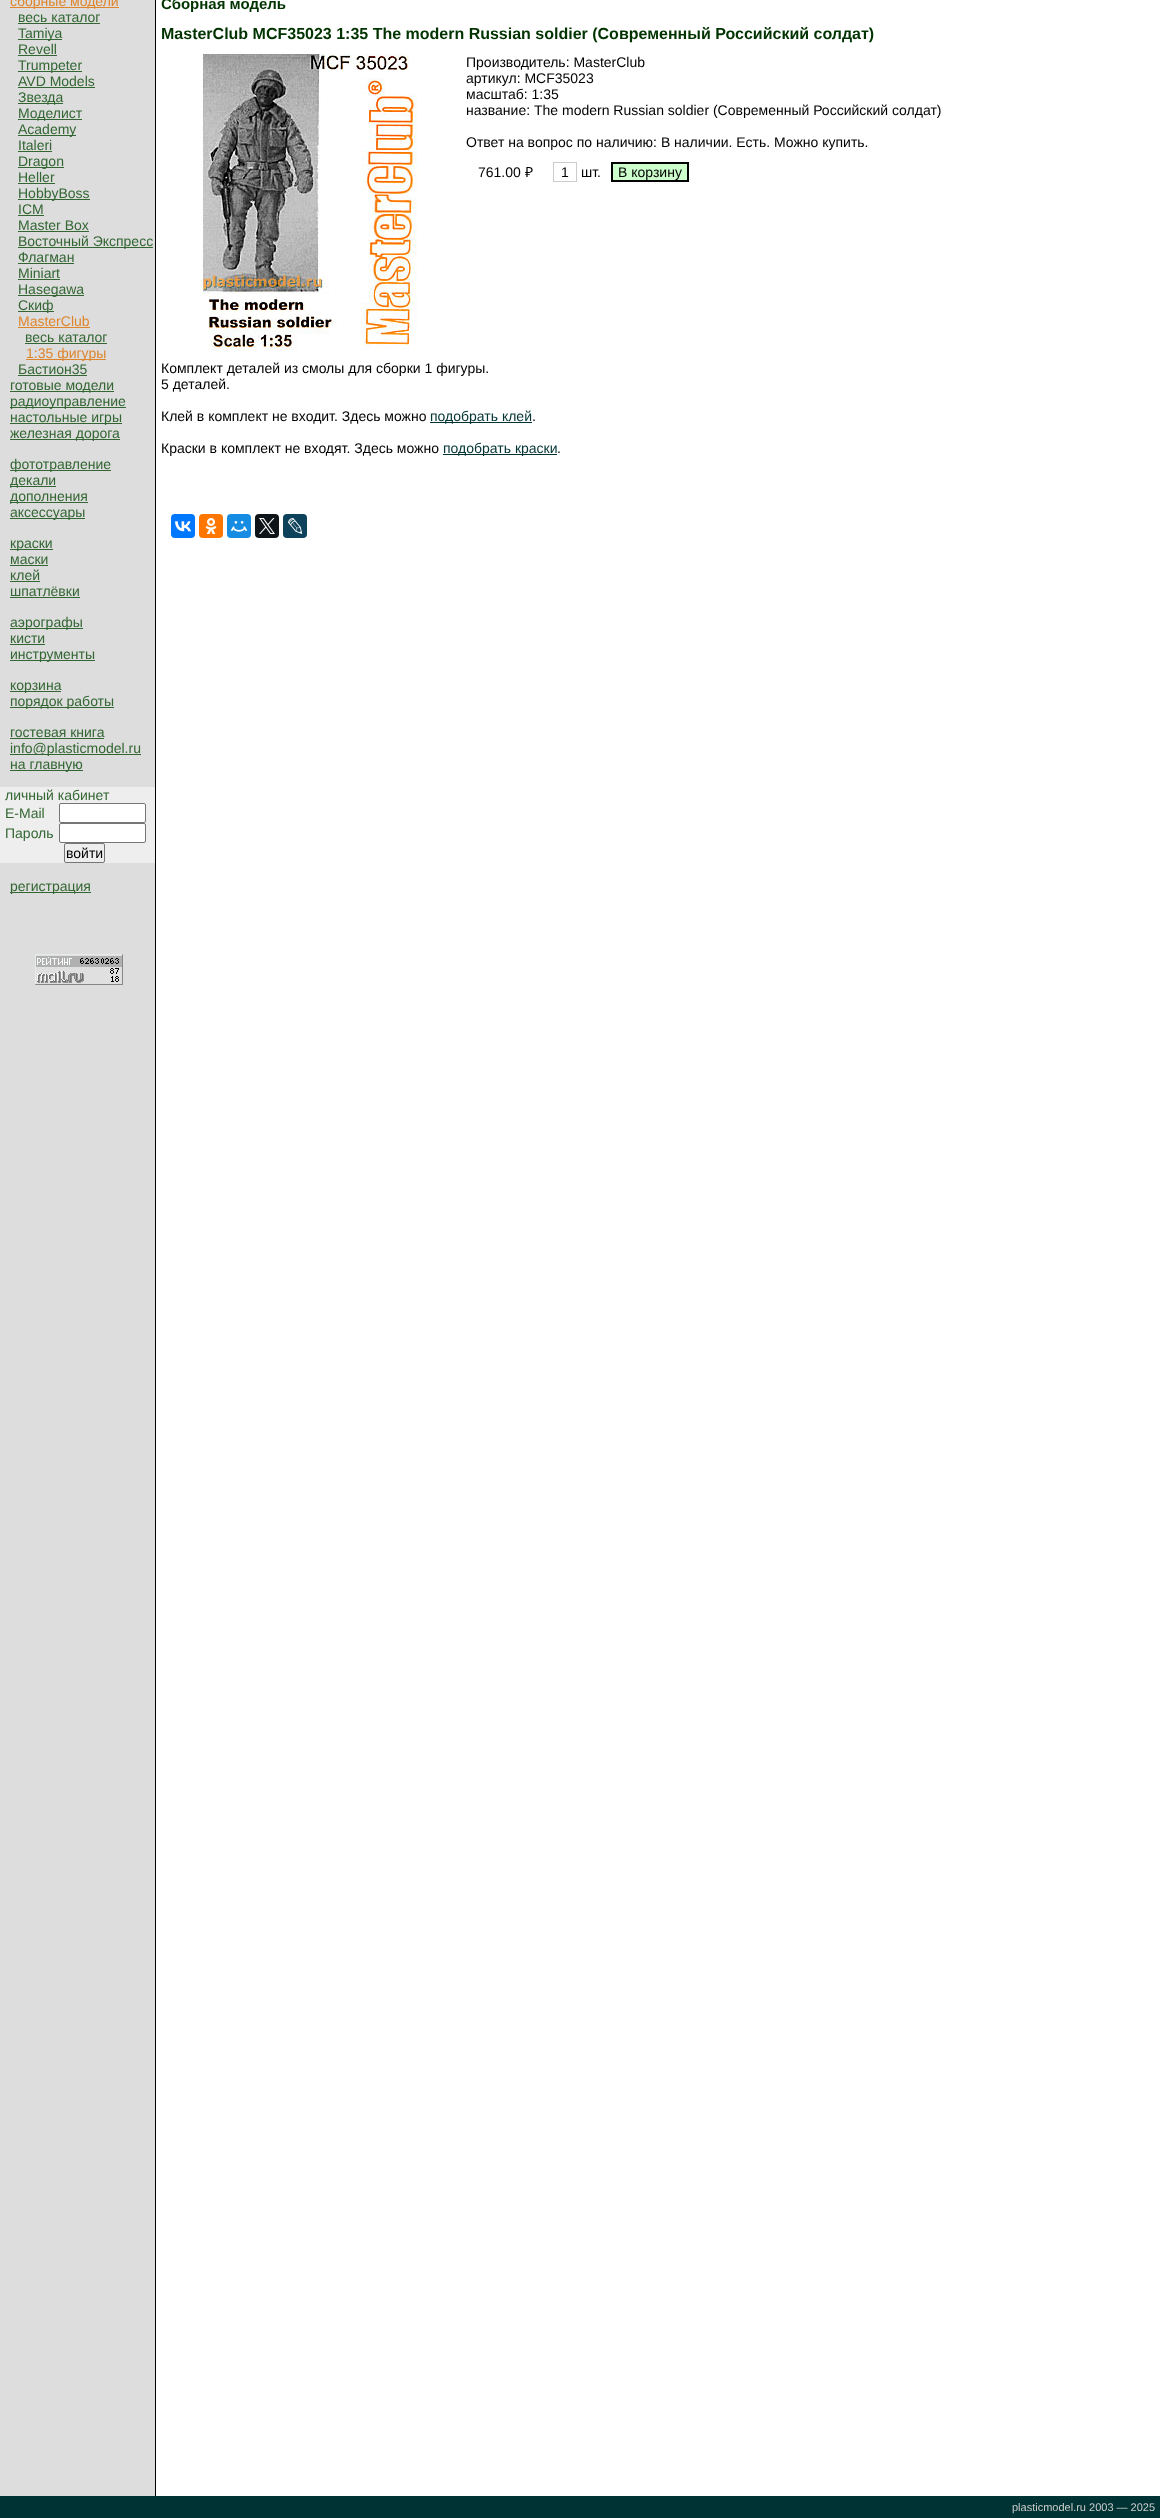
<!DOCTYPE html>
<meta charset="utf-8">
<style>body { margin: 0 } canvas { display: block }</style>
<canvas id="canvas" width="1160" height="2518"></canvas>
<script type="module">
  const canvas = document.getElementById("canvas");
  const ctx = canvas.getContext("2d");
  ctx.miterLimit = 4;
  ctx.fontKerning = "normal";
  async function loadImage(src) {
    const img = new Image();
    img.src = src;
    await img.decode();
    return img;
  }

  ctx.fillStyle = "#ffffff";
  ctx.fillRect(0, 0, 1160, 2518);
  ctx.fillStyle = "#dddddd";
  ctx.fillRect(0, 0, 155, 2496);
  ctx.fillStyle = "#000000";
  ctx.fillRect(155, 0, 1, 2497);
  ctx.fillStyle = "#de852c";
  ctx.fillRect(10, 7, 109, 1);
  ctx.font = "14px Liberation Sans";
  ctx.fillText("сборные модели", 10, 6);
  ctx.fillStyle = "#336633";
  ctx.fillText("весь каталог", 18, 22);
  ctx.fillRect(18, 23, 82, 1);
  ctx.fillRect(18, 39, 44, 1);
  ctx.fillText("Tamiya", 18, 38);
  ctx.fillText("Revell", 18, 54);
  ctx.fillRect(18, 55, 39, 1);
  ctx.fillRect(18, 71, 64, 1);
  ctx.fillText("Trumpeter", 18, 70);
  ctx.fillText("AVD Models", 18, 86);
  ctx.fillRect(18, 87, 77, 1);
  ctx.fillRect(18, 103, 45, 1);
  ctx.fillText("Звезда", 18, 102);
  ctx.fillRect(18, 119, 64, 1);
  ctx.fillText("Моделист", 18, 118);
  ctx.fillRect(18, 135, 58, 1);
  ctx.fillText("Academy", 18, 134);
  ctx.fillText("Italeri", 18, 150);
  ctx.fillRect(18, 151, 34, 1);
  ctx.fillRect(18, 167, 46, 1);
  ctx.fillText("Dragon", 18, 166);
  ctx.fillText("Heller", 18, 182);
  ctx.fillRect(18, 183, 37, 1);
  ctx.fillRect(18, 199, 72, 1);
  ctx.fillText("HobbyBoss", 18, 198);
  ctx.fillText("ICM", 18, 214);
  ctx.fillRect(18, 215, 26, 1);
  ctx.fillText("Master Box", 18, 230);
  ctx.fillRect(18, 231, 71, 1);
  ctx.fillRect(18, 247, 135, 1);
  ctx.fillText("Восточный Экспресс", 18, 246);
  ctx.fillText("Флагман", 18, 262);
  ctx.fillRect(18, 263, 56, 1);
  ctx.fillText("Miniart", 18, 278);
  ctx.fillRect(18, 279, 42, 1);
  ctx.fillRect(18, 295, 66, 1);
  ctx.fillText("Hasegawa", 18, 294);
  ctx.fillRect(18, 311, 36, 1);
  ctx.fillText("Скиф", 18, 310);
  ctx.fillStyle = "#de852c";
  ctx.fillText("MasterClub", 18, 326);
  ctx.fillRect(18, 327, 72, 1);
  ctx.fillStyle = "#336633";
  ctx.fillText("весь каталог", 25, 342);
  ctx.fillRect(25, 343, 82, 1);
  ctx.fillStyle = "#de852c";
  ctx.fillRect(26, 359, 80, 1);
  ctx.fillText("1:35 фигуры", 26, 358);
  ctx.fillStyle = "#336633";
  ctx.fillText("Бастион35", 18, 374);
  ctx.fillRect(18, 375, 69, 1);
  ctx.fillRect(10, 391, 104, 1);
  ctx.fillText("готовые модели", 10, 390);
  ctx.fillRect(10, 407, 116, 1);
  ctx.fillText("радиоуправление", 10, 406);
  ctx.fillRect(10, 423, 112, 1);
  ctx.fillText("настольные игры", 10, 422);
  ctx.fillRect(10, 439, 110, 1);
  ctx.fillText("железная дорога", 10, 438);
  ctx.fillRect(10, 470, 101, 1);
  ctx.fillText("фототравление", 10, 469);
  ctx.fillRect(10, 486, 46, 1);
  ctx.fillText("декали", 10, 485);
  ctx.fillRect(10, 502, 78, 1);
  ctx.fillText("дополнения", 10, 501);
  ctx.fillRect(10, 518, 75, 1);
  ctx.fillText("аксессуары", 10, 517);
  ctx.fillRect(10, 549, 43, 1);
  ctx.fillText("краски", 10, 548);
  ctx.fillText("маски", 10, 564);
  ctx.fillRect(10, 565, 38, 1);
  ctx.fillText("клей", 10, 580);
  ctx.fillRect(10, 581, 30, 1);
  ctx.fillText("шпатлёвки", 10, 596);
  ctx.fillRect(10, 597, 70, 1);
  ctx.fillRect(10, 628, 73, 1);
  ctx.fillText("аэрографы", 10, 627);
  ctx.fillText("кисти", 10, 643);
  ctx.fillRect(10, 644, 35, 1);
  ctx.fillRect(10, 660, 85, 1);
  ctx.fillText("инструменты", 10, 659);
  ctx.fillRect(10, 691, 51, 1);
  ctx.fillText("корзина", 10, 690);
  ctx.fillRect(10, 707, 104, 1);
  ctx.fillText("порядок работы", 10, 706);
  ctx.fillText("гостевая книга", 10, 737);
  ctx.fillRect(10, 738, 94, 1);
  ctx.fillRect(10, 754, 131, 1);
  ctx.fillText("info@plasticmodel.ru", 10, 753);
  ctx.fillRect(10, 770, 73, 1);
  ctx.fillText("на главную", 10, 769);
  ctx.fillStyle = "#eeeeee";
  ctx.fillRect(0, 787, 155, 76);
  ctx.fillStyle = "#336633";
  ctx.fillText("личный кабинет", 5, 800);
  ctx.fillText("E-Mail", 5, 818);
  ctx.fillStyle = "#ffffff";
  ctx.beginPath();
  ctx.roundRect(59.5, 803.5, 86, 19, 1.5);
  ctx.fill();
  ctx.strokeStyle = "#767676";
  ctx.stroke();
  ctx.fillStyle = "#336633";
  ctx.fillText("Пароль", 5, 838);
  ctx.fillStyle = "#ffffff";
  ctx.beginPath();
  ctx.roundRect(59.5, 823.5, 86, 19, 1.5);
  ctx.fill();
  ctx.stroke();
  ctx.beginPath();
  ctx.roundRect(64.5, 843.5, 40, 19, 1.5);
  ctx.stroke();
  ctx.fillStyle = "#000000";
  ctx.fillText("войти", 66, 858);
  ctx.fillStyle = "#336633";
  ctx.fillRect(10, 892, 81, 1);
  ctx.fillText("регистрация", 10, 891);
  ctx.drawImage(await loadImage("img1.png"), 35, 954, 88, 31);
  ctx.font = "bold 15px Liberation Sans";
  ctx.fillStyle = "#003300";
  ctx.fillText("Сборная модель", 161, 9);
  ctx.font = "bold 16px Liberation Sans";
  ctx.fillText("MasterClub MCF35023 1:35 The modern Russian soldier (Современный Российский солдат)", 161, 39);
  ctx.drawImage(await loadImage("img2.png"), 201, 54, 216, 296);
  ctx.font = "14px Liberation Sans";
  ctx.fillStyle = "#000000";
  ctx.fillText("Производитель: MasterClub", 466, 67);
  ctx.fillText("артикул: MCF35023", 466, 83);
  ctx.fillText("масштаб: 1:35", 466, 99);
  ctx.fillText("название: The modern Russian soldier (Современный Российский солдат)", 466, 115);
  ctx.fillText("Ответ на вопрос по наличию: В наличии. Есть. Можно купить.", 466, 147);
  ctx.fillText("761.00", 478, 177);
  ctx.font = "14px Noto Sans";
  ctx.fillText("₽", 525, 177);
  ctx.strokeStyle = "#cccccc";
  ctx.strokeRect(553.5, 162.5, 23, 19);
  ctx.font = "14px Liberation Sans";
  ctx.fillText("1", 561, 177);
  ctx.fillText("шт.", 581, 177);
  ctx.fillStyle = "#ccffcc";
  ctx.beginPath();
  ctx.rect(612, 163, 76, 18);
  ctx.fill();
  ctx.strokeStyle = "#000000";
  ctx.lineWidth = 2;
  ctx.stroke();
  ctx.fillStyle = "#000000";
  ctx.fillText("В корзину", 618, 177);
  ctx.fillText("Комплект деталей из смолы для сборки 1 фигуры.", 161, 373);
  ctx.fillText("5 деталей.", 161, 389);
  ctx.fillText("Клей в комплект не входит. Здесь можно", 161, 421);
  ctx.fillStyle = "#003333";
  ctx.fillRect(430, 422, 102, 1);
  ctx.fillText("подобрать клей", 430, 421);
  ctx.fillStyle = "#000000";
  ctx.fillText(".", 532, 421);
  ctx.fillText("Краски в комплект не входят. Здесь можно", 161, 453);
  ctx.fillStyle = "#003333";
  ctx.fillRect(443, 454, 114, 1);
  ctx.fillText("подобрать краски", 443, 453);
  ctx.fillStyle = "#000000";
  ctx.fillText(".", 557, 453);
  ctx.fillStyle = "#0077ff";
  ctx.beginPath();
  ctx.roundRect(171, 514, 24, 24, 4);
  ctx.fill();
  ctx.drawImage(await loadImage("img3.png"), 175, 521, 16, 11);
  ctx.fillStyle = "#ff7700";
  ctx.beginPath();
  ctx.roundRect(199, 514, 24, 24, 4);
  ctx.fill();
  ctx.drawImage(await loadImage("img4.png"), 205, 518, 12, 16);
  ctx.fillStyle = "#168de2";
  ctx.beginPath();
  ctx.roundRect(227, 514, 24, 24, 4);
  ctx.fill();
  ctx.drawImage(await loadImage("img5.png"), 231, 521, 16, 11);
  ctx.fillStyle = "#0f1419";
  ctx.beginPath();
  ctx.roundRect(255, 514, 24, 24, 4);
  ctx.fill();
  ctx.drawImage(await loadImage("img6.png"), 259, 518, 16, 16);
  ctx.fillStyle = "#0d425a";
  ctx.beginPath();
  ctx.roundRect(283, 514, 24, 24, 4);
  ctx.fill();
  ctx.drawImage(await loadImage("img7.png"), 288, 518, 15, 16);
  ctx.fillStyle = "#003333";
  ctx.fillRect(0, 2496, 1160, 22);
  ctx.font = "11px Liberation Sans";
  ctx.fillStyle = "#cccccc";
  ctx.fillText("plasticmodel.ru 2003 — 2025", 1012, 2511);
</script>
